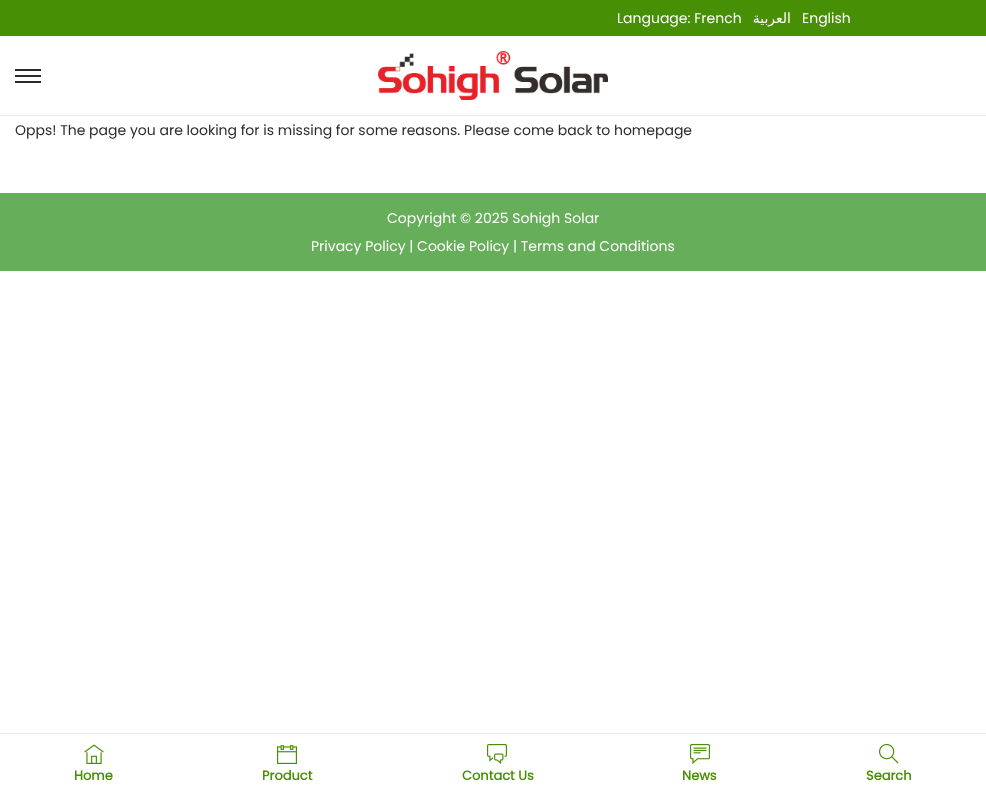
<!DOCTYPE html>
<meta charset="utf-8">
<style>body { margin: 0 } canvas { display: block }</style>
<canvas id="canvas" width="986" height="792"></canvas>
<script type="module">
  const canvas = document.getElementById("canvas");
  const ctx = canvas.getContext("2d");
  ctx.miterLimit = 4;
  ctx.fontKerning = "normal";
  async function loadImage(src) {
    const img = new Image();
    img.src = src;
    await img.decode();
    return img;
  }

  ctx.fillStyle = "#ffffff";
  ctx.fillRect(0, 0, 986, 792);
  ctx.fillStyle = "#478f04";
  ctx.fillRect(0, 0, 986, 36);
  ctx.font = "14px Poppins";
  ctx.fillStyle = "#ffffff";
  ctx.fillText("Language: French", 617, 23);
  ctx.direction = "rtl";
  ctx.font = "14px DejaVu Sans";
  ctx.fillText("العربية", 791, 23);
  ctx.direction = "ltr";
  ctx.font = "14px Poppins";
  ctx.fillText("English", 802, 23);
  ctx.fillStyle = "#eaeaea";
  ctx.fillRect(0, 115, 986, 1);
  ctx.fillStyle = "#2b2b2b";
  ctx.fillRect(15, 75, 26, 2);
  ctx.fillRect(15, 69, 26, 2);
  ctx.fillRect(15, 81, 26, 2);
  ctx.drawImage(await loadImage("img1.png"), 378, 51, 230, 49);
  ctx.fillText("Opps! The page you are looking for is missing for some reasons. Please come back to homepage", 15, 135);
  ctx.fillStyle = "#67ae5b";
  ctx.fillRect(0, 193, 986, 78);
  ctx.fillStyle = "#ffffff";
  ctx.fillText("Copyright © 2025 Sohigh Solar", 387, 223);
  ctx.fillText("Privacy Policy | Cookie Policy | Terms and Conditions", 311, 251);
  ctx.fillStyle = "#eaeaea";
  ctx.fillRect(0, 733, 986, 1);
  ctx.drawImage(await loadImage("img2.png"), 84, 744, 20, 20);
  ctx.font = "bold 13px Poppins";
  ctx.fillStyle = "#478f04";
  ctx.fillText("Home", 74, 780);
  ctx.drawImage(await loadImage("img3.png"), 277, 745, 20, 19);
  ctx.fillText("Product", 262, 780);
  ctx.drawImage(await loadImage("img4.png"), 487, 744, 20, 20);
  ctx.fillText("Contact Us", 462, 780);
  ctx.drawImage(await loadImage("img5.png"), 690, 744, 20, 20);
  ctx.fillText("News", 682, 780);
  ctx.drawImage(await loadImage("img6.png"), 879, 744, 20, 20);
  ctx.fillText("Search", 866, 780);
</script>
